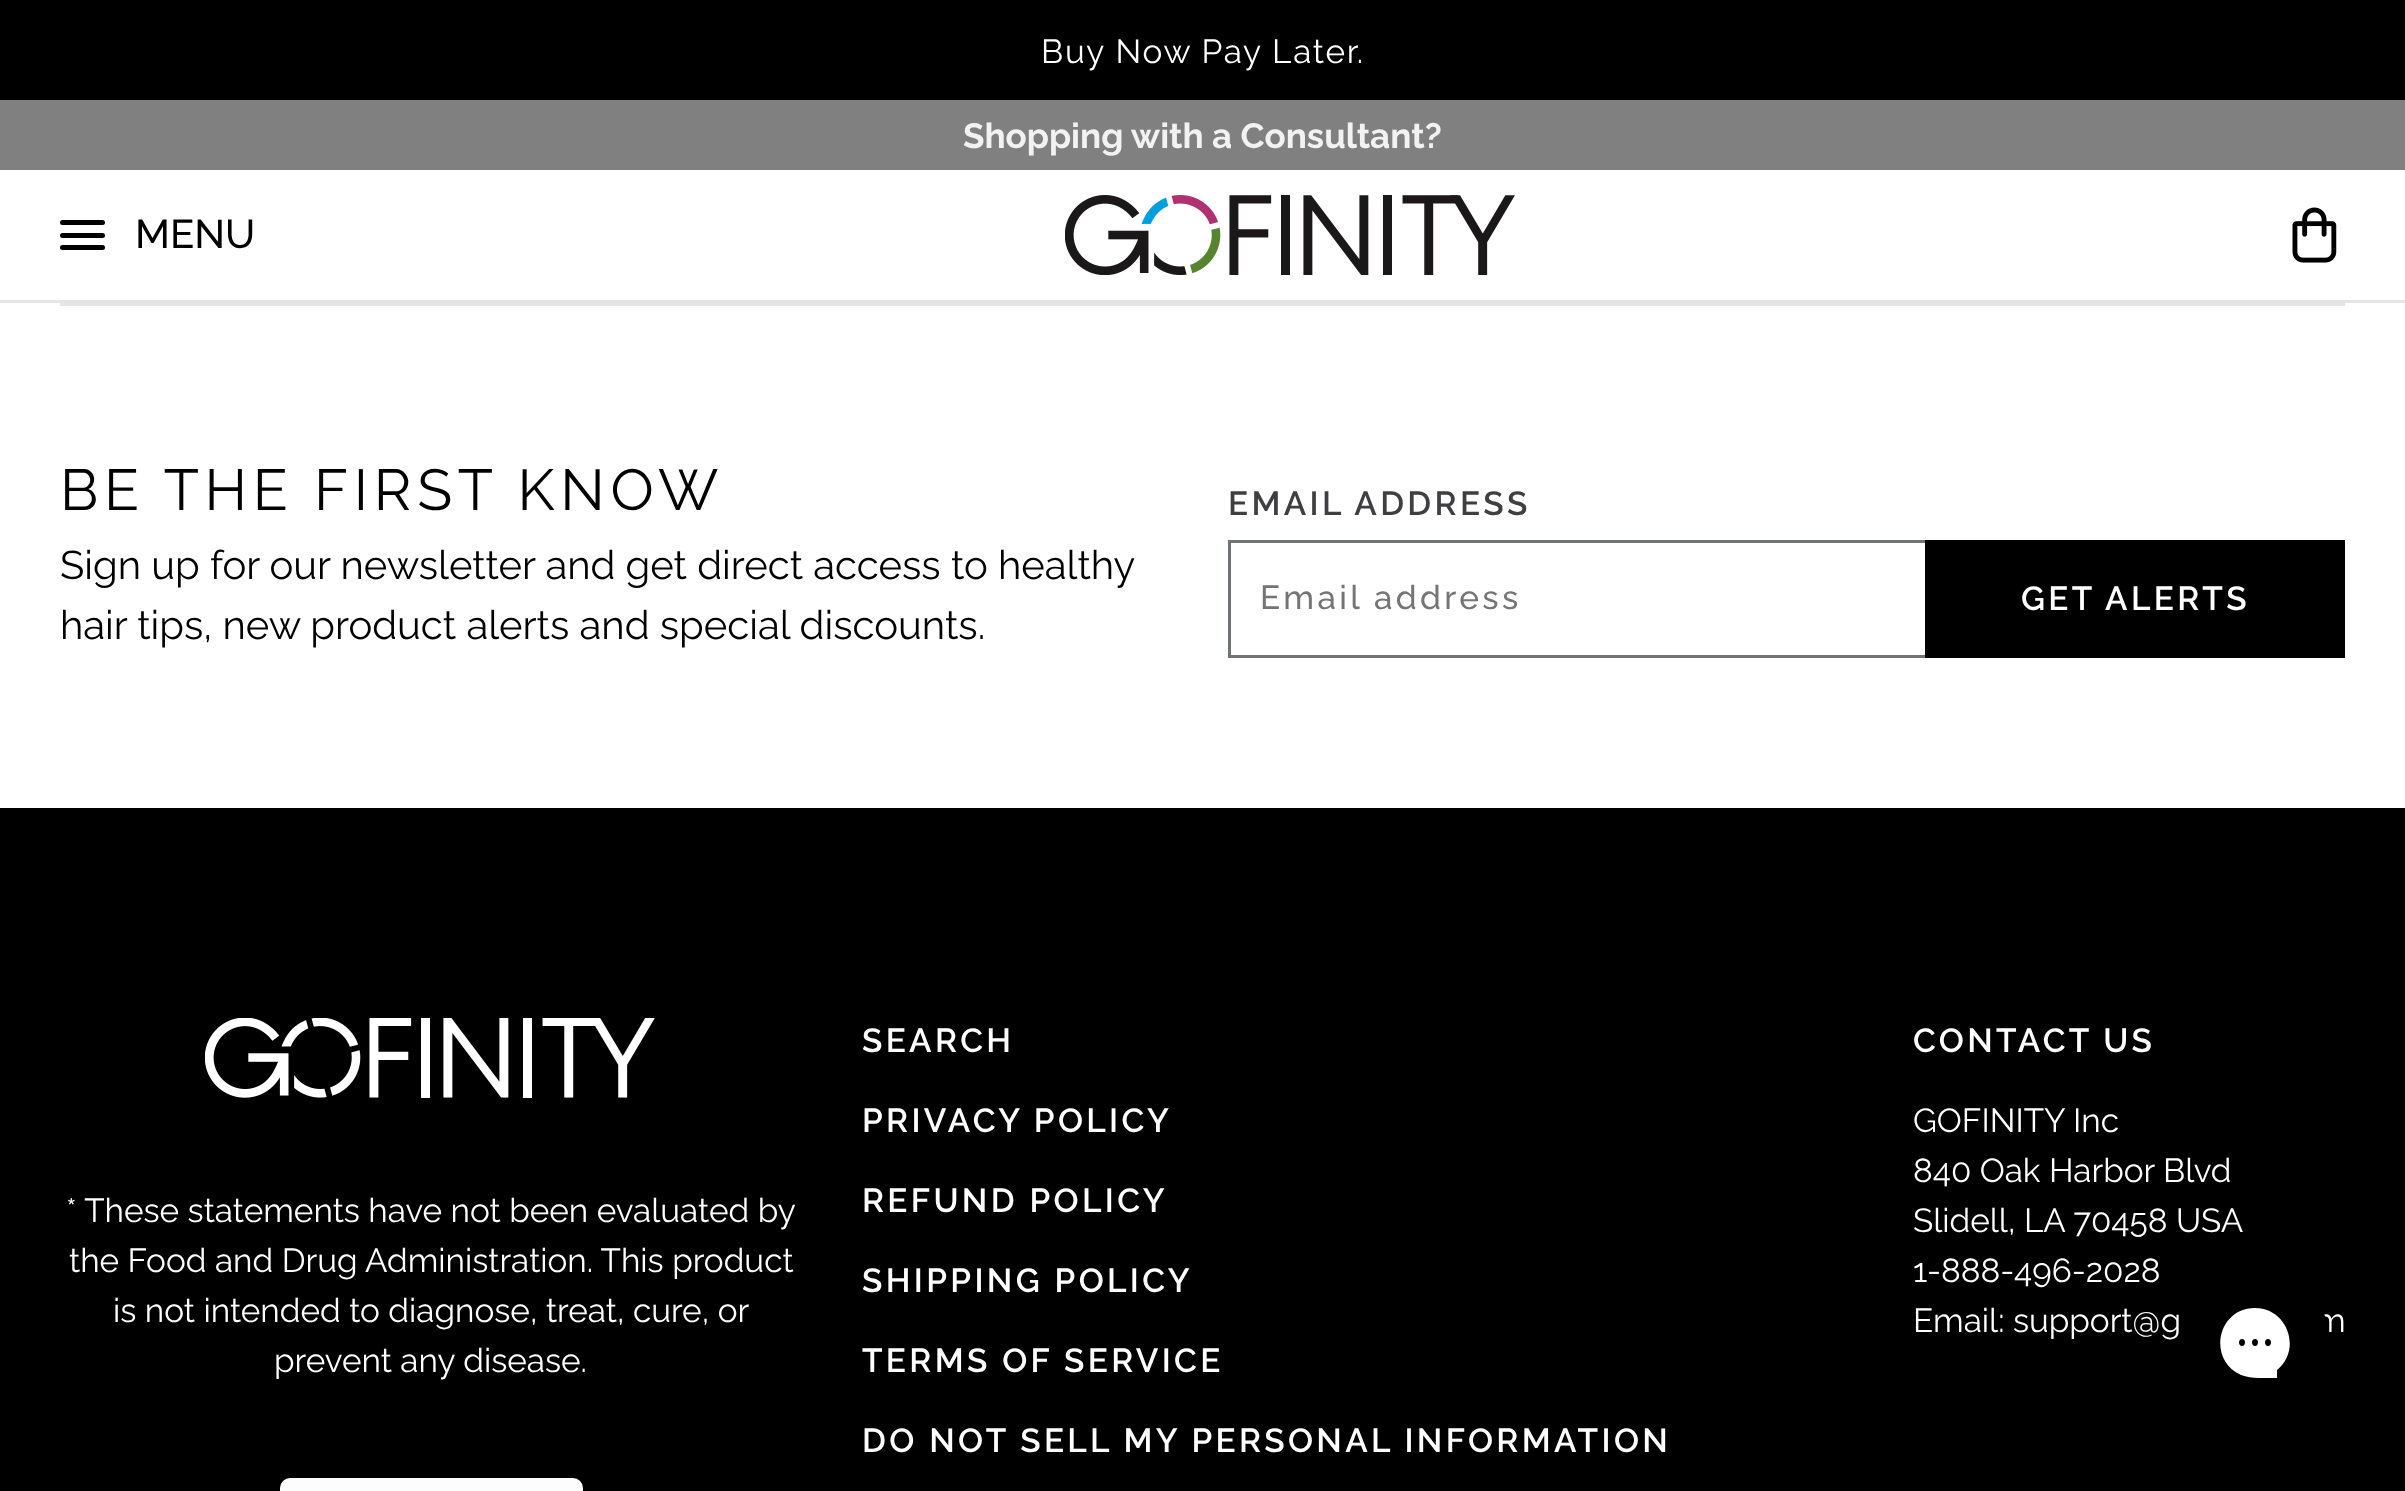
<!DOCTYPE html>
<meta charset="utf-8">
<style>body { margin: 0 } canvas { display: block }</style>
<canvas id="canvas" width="2405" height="1491"></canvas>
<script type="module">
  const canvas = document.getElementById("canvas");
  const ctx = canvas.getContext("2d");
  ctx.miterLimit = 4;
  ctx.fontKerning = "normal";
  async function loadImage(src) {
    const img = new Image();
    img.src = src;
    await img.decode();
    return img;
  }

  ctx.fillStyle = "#ffffff";
  ctx.fillRect(0, 0, 2405, 1491);
  ctx.fillStyle = "#000000";
  ctx.fillRect(0, 0, 2405, 100);
  ctx.letterSpacing = "1.7px";
  ctx.font = "33.3px Raleway";
  ctx.fillStyle = "#ffffff";
  ctx.fillText("Buy Now Pay Later.", 1041, 63);
  ctx.fillStyle = "#e5e5e6";
  ctx.fillRect(0, 300, 2405, 3);
  ctx.fillStyle = "#808080";
  ctx.fillRect(0, 100, 2405, 70);
  ctx.letterSpacing = "0px";
  ctx.font = "bold 35px Raleway";
  ctx.fillStyle = "#f2f2f2";
  ctx.fillText("Shopping with a Consultant?", 963, 148);
  ctx.fillStyle = "#000000";
  ctx.beginPath();
  ctx.roundRect(60, 233, 45, 5, 2.5);
  ctx.fill();
  ctx.beginPath();
  ctx.roundRect(60, 220, 45, 5, 2.5);
  ctx.fill();
  ctx.beginPath();
  ctx.roundRect(60, 245, 45, 5, 2.5);
  ctx.fill();
  ctx.font = "500 40px Raleway";
  ctx.fillText("MENU", 135, 248);
  ctx.drawImage(await loadImage("img1.png"), 1065, 195, 450, 80);
  ctx.drawImage(await loadImage("img2.png"), 2292, 207, 45, 56);
  ctx.fillStyle = "#e5e5e6";
  ctx.fillRect(60, 303, 2285, 3);
  ctx.letterSpacing = "5.75px";
  ctx.font = "57.6px Raleway";
  ctx.fillStyle = "#000000";
  ctx.fillText("BE THE FIRST KNOW", 60, 510);
  ctx.letterSpacing = "0px";
  ctx.font = "40px Raleway";
  ctx.fillText("Sign up for our newsletter and get direct access to healthy", 60, 579);
  ctx.fillText("hair tips, new product alerts and special discounts.", 60, 639);
  ctx.letterSpacing = "3.35px";
  ctx.font = "600 33.3px Raleway";
  ctx.fillStyle = "#3f3f41";
  ctx.fillText("EMAIL ADDRESS", 1228, 515);
  ctx.fillStyle = "#717275";
  ctx.fillRect(1228, 540, 697, 3);
  ctx.fillRect(1228, 655, 697, 3);
  ctx.fillRect(1228, 540, 3, 118);
  ctx.font = "500 33.3px Raleway";
  ctx.fillStyle = "#757575";
  ctx.fillText("Email address", 1260, 609);
  ctx.fillStyle = "#000000";
  ctx.fillRect(1925, 540, 420, 118);
  ctx.font = "600 33.3px Raleway";
  ctx.fillStyle = "#ffffff";
  ctx.fillText("GET ALERTS", 2021, 610);
  ctx.fillStyle = "#000000";
  ctx.fillRect(0, 808, 2405, 683);
  ctx.drawImage(await loadImage("img3.png"), 205, 1018, 450, 80);
  ctx.letterSpacing = "0px";
  ctx.font = "33.3px Raleway";
  ctx.fillStyle = "#ffffff";
  ctx.fillText("* These statements have not been evaluated by", 66, 1222);
  ctx.fillText("the Food and Drug Administration. This product", 69, 1272);
  ctx.fillText("is not intended to diagnose, treat, cure, or", 113, 1322);
  ctx.fillText("prevent any disease.", 274, 1372);
  ctx.fillStyle = "#fdfdfd";
  ctx.beginPath();
  ctx.roundRect(280, 1478, 303, 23, 10);
  ctx.fill();
  ctx.letterSpacing = "3.35px";
  ctx.font = "600 33.3px Raleway";
  ctx.fillStyle = "#ffffff";
  ctx.fillText("SEARCH", 862, 1052);
  ctx.fillText("PRIVACY POLICY", 862, 1132);
  ctx.fillText("REFUND POLICY", 862, 1212);
  ctx.fillText("SHIPPING POLICY", 862, 1292);
  ctx.fillText("TERMS OF SERVICE", 862, 1372);
  ctx.fillText("DO NOT SELL MY PERSONAL INFORMATION", 862, 1452);
  ctx.fillText("CONTACT US", 1913, 1052);
  ctx.letterSpacing = "0px";
  ctx.font = "33.3px Raleway";
  ctx.fillText("GOFINITY Inc", 1913, 1132);
  ctx.fillText("840 Oak Harbor Blvd", 1913, 1182);
  ctx.fillText("Slidell, LA 70458 USA", 1913, 1232);
  ctx.fillText("1-888-496-2028", 1913, 1282);
  ctx.fillText("Email: support@g", 1913, 1332);
  ctx.fillText("m", 2315, 1332);
  ctx.fillStyle = "#000000";
  ctx.beginPath();
  ctx.arc(2255, 1343, 75, 0, Math.PI * 2);
  ctx.fill();
  ctx.save();
  ctx.beginPath();
  ctx.rect(2220, 1308, 70, 70);
  ctx.clip();
  ctx.fillStyle = "#ffffff";
  ctx.beginPath();
  ctx.moveTo(2255, 1308);
  ctx.bezierCurveTo(2217, 1308, 2207, 1360, 2241, 1375);
  ctx.bezierCurveTo(2252, 1379, 2265, 1378, 2277, 1378);
  ctx.lineTo(2277, 1370);
  ctx.bezierCurveTo(2302, 1350, 2288, 1308, 2255, 1308);
  ctx.closePath();
  ctx.moveTo(2242, 1346);
  ctx.bezierCurveTo(2238, 1346, 2238, 1339, 2242, 1339);
  ctx.bezierCurveTo(2246, 1339, 2246, 1346, 2242, 1346);
  ctx.closePath();
  ctx.moveTo(2255, 1346);
  ctx.bezierCurveTo(2251, 1346, 2251, 1339, 2255, 1339);
  ctx.bezierCurveTo(2259, 1339, 2259, 1346, 2255, 1346);
  ctx.closePath();
  ctx.moveTo(2268, 1346);
  ctx.bezierCurveTo(2264, 1346, 2264, 1339, 2268, 1339);
  ctx.bezierCurveTo(2272, 1339, 2272, 1346, 2268, 1346);
  ctx.closePath();
  ctx.fill();
  ctx.restore();
</script>
